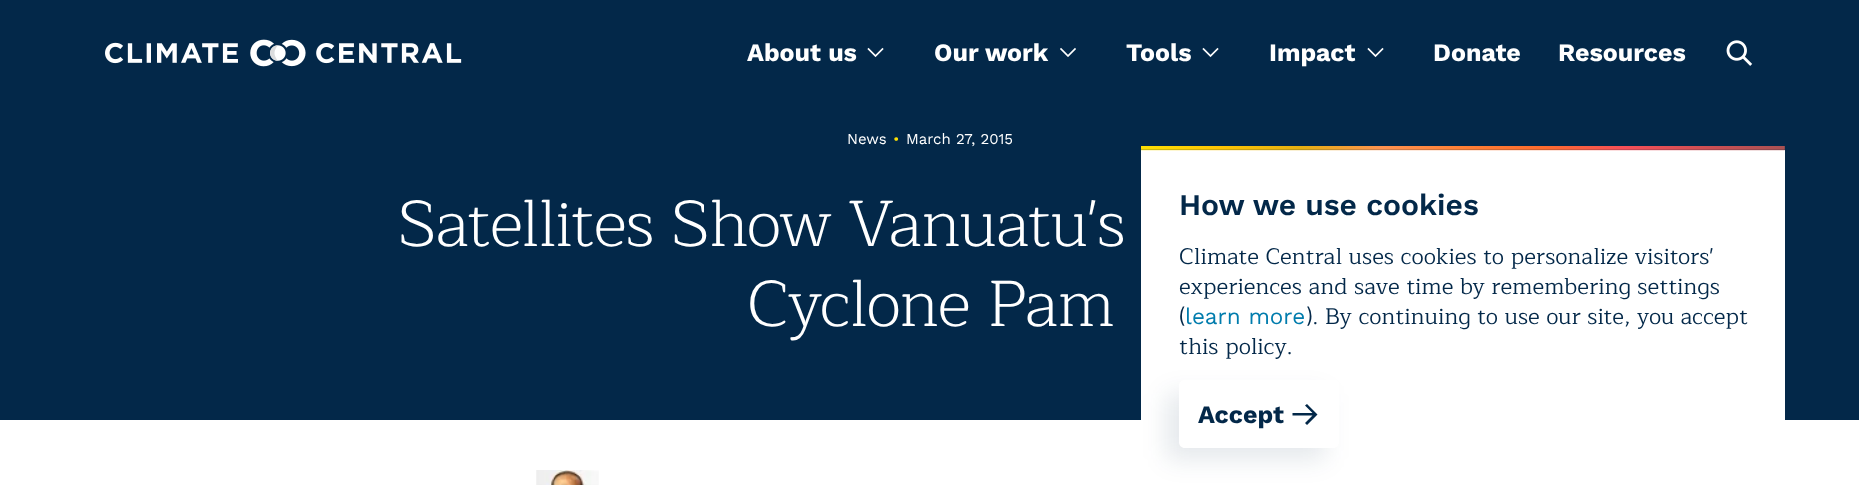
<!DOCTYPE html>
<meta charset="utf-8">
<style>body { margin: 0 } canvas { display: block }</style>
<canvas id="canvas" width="1859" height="485"></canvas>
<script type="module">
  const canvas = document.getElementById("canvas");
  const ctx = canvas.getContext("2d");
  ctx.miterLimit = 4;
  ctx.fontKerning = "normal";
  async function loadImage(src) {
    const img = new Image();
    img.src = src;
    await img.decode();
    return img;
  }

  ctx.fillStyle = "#ffffff";
  ctx.fillRect(0, 0, 1859, 485);
  ctx.fillStyle = "#032849";
  ctx.fillRect(0, 0, 1859, 420);
  ctx.drawImage(await loadImage("img1.png"), 105, 39, 357, 28);
  ctx.font = "bold 25px Work Sans";
  ctx.fillStyle = "#ffffff";
  ctx.fillText("About us", 747, 61);
  ctx.drawImage(await loadImage("img2.png"), 867, 47, 17, 11);
  ctx.fillText("Our work", 934, 61);
  ctx.drawImage(await loadImage("img3.png"), 1060, 47, 16, 10);
  ctx.fillText("Tools", 1126, 61);
  ctx.drawImage(await loadImage("img2.png"), 1202, 47, 17, 11);
  ctx.fillText("Impact", 1269, 61);
  ctx.drawImage(await loadImage("img2.png"), 1367, 47, 17, 11);
  ctx.fillText("Donate", 1433, 61);
  ctx.fillText("Resources", 1558, 61);
  ctx.drawImage(await loadImage("img4.png"), 1726, 40, 27, 26);
  ctx.font = "15px Work Sans";
  ctx.fillText("News", 847, 144);
  ctx.fillStyle = "#fee004";
  ctx.fillText("•", 893, 144);
  ctx.fillStyle = "#ffffff";
  ctx.fillText("March 27, 2015", 906, 144);
  ctx.letterSpacing = "-1.25px";
  ctx.font = "300 65px Maitree";
  ctx.fillText("Satellites Show Vanuatu's", 398, 246);
  ctx.fillText("Cyclone Pam", 747, 326);
  ctx.fillRect(1141, 150, 644, 270);
  ctx.drawImage(await loadImage("img5.png"), 1141, 146, 644, 5);
  ctx.letterSpacing = "0px";
  ctx.font = "600 30px Work Sans";
  ctx.fillStyle = "#032849";
  ctx.fillText("How we use cookies", 1179, 215);
  ctx.font = "22.5px Maitree";
  ctx.fillText("Climate Central uses cookies to personalize visitors'", 1179, 264);
  ctx.fillText("experiences and save time by remembering settings", 1179, 294);
  ctx.fillText("(", 1179, 324);
  ctx.font = "22.5px Work Sans";
  ctx.fillStyle = "#007cad";
  ctx.fillText("learn more", 1185, 324);
  ctx.font = "22.5px Maitree";
  ctx.fillStyle = "#032849";
  ctx.fillText("). By continuing to use our site, you accept", 1306, 324);
  ctx.fillText("this policy.", 1179, 354);
  ctx.save();
  ctx.beginPath();
  ctx.moveTo(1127, 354);
  ctx.lineTo(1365, 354);
  ctx.lineTo(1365, 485);
  ctx.lineTo(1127, 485);
  ctx.closePath();
  ctx.moveTo(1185, 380);
  ctx.lineTo(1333, 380);
  ctx.bezierCurveTo(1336.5, 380, 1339, 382.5, 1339, 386);
  ctx.lineTo(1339, 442);
  ctx.bezierCurveTo(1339, 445.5, 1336.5, 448, 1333, 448);
  ctx.lineTo(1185, 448);
  ctx.bezierCurveTo(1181.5, 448, 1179, 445.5, 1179, 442);
  ctx.lineTo(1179, 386);
  ctx.bezierCurveTo(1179, 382.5, 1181.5, 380, 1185, 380);
  ctx.closePath();
  ctx.clip("evenodd");
  ctx.fillStyle = "rgba(3, 40, 73, 0.1)";
  ctx.filter = "blur(12.5px)";
  ctx.beginPath();
  ctx.roundRect(1166, 393, 160, 67, 6);
  ctx.fill();
  ctx.filter = "none";
  ctx.restore();
  ctx.font = "bold 25px Work Sans";
  ctx.fillText("Accept", 1198, 423);
  ctx.beginPath();
  ctx.moveTo(1307, 404);
  ctx.lineTo(1317.5, 414.5);
  ctx.lineTo(1307, 425);
  ctx.lineTo(1305, 423);
  ctx.lineTo(1312.5, 415.5);
  ctx.lineTo(1292.5, 415.5);
  ctx.lineTo(1292.5, 413);
  ctx.lineTo(1312.5, 413);
  ctx.lineTo(1305, 405.5);
  ctx.closePath();
  ctx.fill("evenodd");
  ctx.drawImage(await loadImage("img6.png"), 536, 470, 63, 15);
</script>
